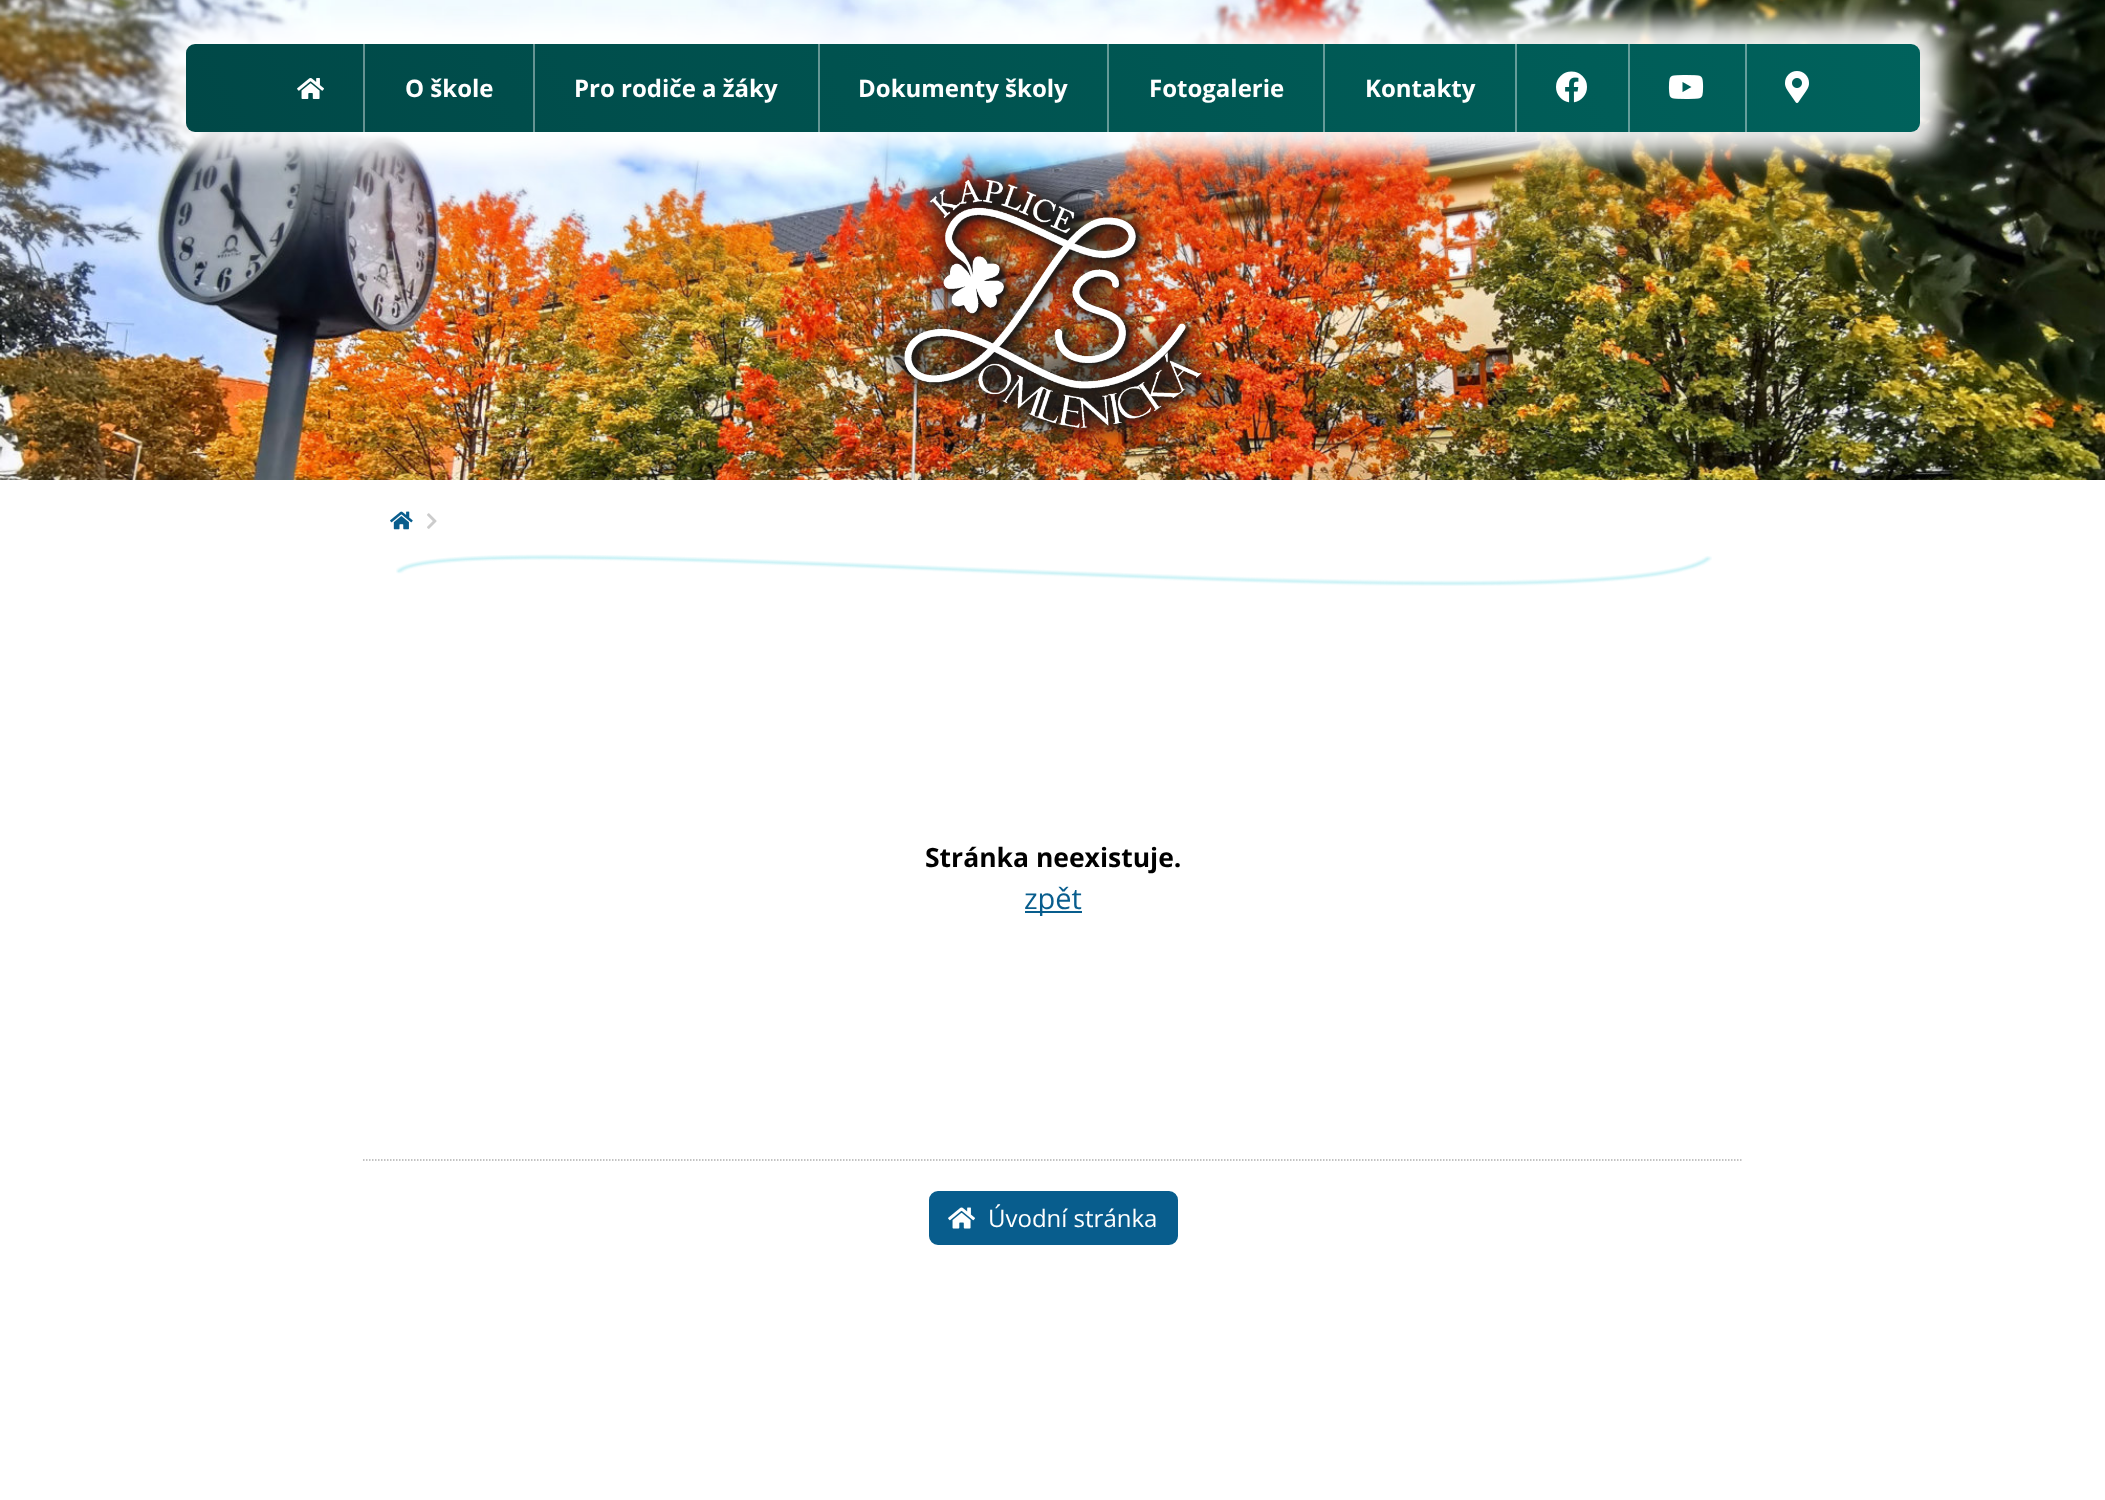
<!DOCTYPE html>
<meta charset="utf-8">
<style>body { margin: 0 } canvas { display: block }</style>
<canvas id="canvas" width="2105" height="1500"></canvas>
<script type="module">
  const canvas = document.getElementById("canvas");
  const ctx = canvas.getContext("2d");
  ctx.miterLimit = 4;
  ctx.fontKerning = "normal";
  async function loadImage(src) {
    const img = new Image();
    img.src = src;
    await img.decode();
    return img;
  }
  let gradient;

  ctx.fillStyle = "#ffffff";
  ctx.fillRect(0, 0, 2105, 1500);
  ctx.drawImage(await loadImage("img1.png"), 0, 0, 2105, 480);
  ctx.drawImage(await loadImage("img6.png"), 882, 158, 340, 292);
  ctx.fillStyle = "rgba(255, 255, 255, 0.9)";
  ctx.filter = "blur(11px)";
  ctx.beginPath();
  ctx.roundRect(164, 21, 1779, 134, 32);
  ctx.fill();
  ctx.filter = "none";
  gradient = ctx.createLinearGradient(324, 428, 1782, -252);
  gradient.addColorStop(0, "#004847");
  gradient.addColorStop(1, "#00625c");
  ctx.fillStyle = gradient;
  ctx.beginPath();
  ctx.roundRect(186, 44, 1734, 88, 9);
  ctx.fill();
  ctx.fillStyle = "#669392";
  ctx.fillRect(363, 44, 2, 88);
  ctx.drawImage(await loadImage("img2.png"), 297, 78, 27, 21);
  ctx.fillStyle = "#669493";
  ctx.fillRect(533, 44, 2, 88);
  ctx.font = "bold 24px Open Sans";
  ctx.fillStyle = "#ffffff";
  ctx.fillText("O škole", 405, 97);
  ctx.fillStyle = "#669795";
  ctx.fillRect(818, 44, 2, 88);
  ctx.fillStyle = "#ffffff";
  ctx.fillText("Pro rodiče a žáky", 574, 97);
  ctx.fillStyle = "#669a97";
  ctx.fillRect(1107, 44, 2, 88);
  ctx.fillStyle = "#ffffff";
  ctx.fillText("Dokumenty školy", 858, 97);
  ctx.fillStyle = "#669b99";
  ctx.fillRect(1323, 44, 2, 88);
  ctx.fillStyle = "#ffffff";
  ctx.fillText("Fotogalerie", 1149, 97);
  ctx.fillStyle = "#669d9a";
  ctx.fillRect(1515, 44, 2, 88);
  ctx.fillStyle = "#ffffff";
  ctx.fillText("Kontakty", 1365, 97);
  ctx.fillStyle = "#669e9b";
  ctx.fillRect(1628, 44, 2, 88);
  ctx.drawImage(await loadImage("img3.png"), 1556, 71, 31, 32);
  ctx.fillStyle = "#669f9c";
  ctx.fillRect(1745, 44, 2, 88);
  ctx.drawImage(await loadImage("img4.png"), 1668, 75, 36, 24);
  ctx.drawImage(await loadImage("img5.png"), 1785, 71, 24, 32);
  ctx.drawImage(await loadImage("img7.png"), 396, 554, 1316, 32);
  ctx.drawImage(await loadImage("img8.png"), 390, 511, 23, 19);
  ctx.drawImage(await loadImage("img9.png"), 427, 513, 10, 16);
  ctx.beginPath();
  ctx.moveTo(363, 1160);
  ctx.lineTo(1743, 1160);
  ctx.strokeStyle = "#b0b0b0";
  ctx.lineWidth = 1.5;
  ctx.setLineDash([1.5, 1.5]);
  ctx.stroke();
  ctx.font = "bold 26.5px Open Sans";
  ctx.fillStyle = "#000000";
  ctx.fillText("Stránka neexistuje.", 925, 867);
  ctx.fillStyle = "#085d8d";
  ctx.fillRect(1025, 911, 57, 2);
  ctx.font = "29px Open Sans";
  ctx.fillText("zpět", 1024, 909);
  ctx.beginPath();
  ctx.roundRect(930, 1192, 247, 52, 8);
  ctx.fill();
  ctx.strokeStyle = "#085d8d";
  ctx.lineWidth = 2;
  ctx.setLineDash([]);
  ctx.stroke();
  ctx.drawImage(await loadImage("img10.png"), 948, 1207, 27, 22);
  ctx.font = "24px Open Sans";
  ctx.fillStyle = "#ffffff";
  ctx.fillText("Úvodní stránka", 988, 1227);
</script>
